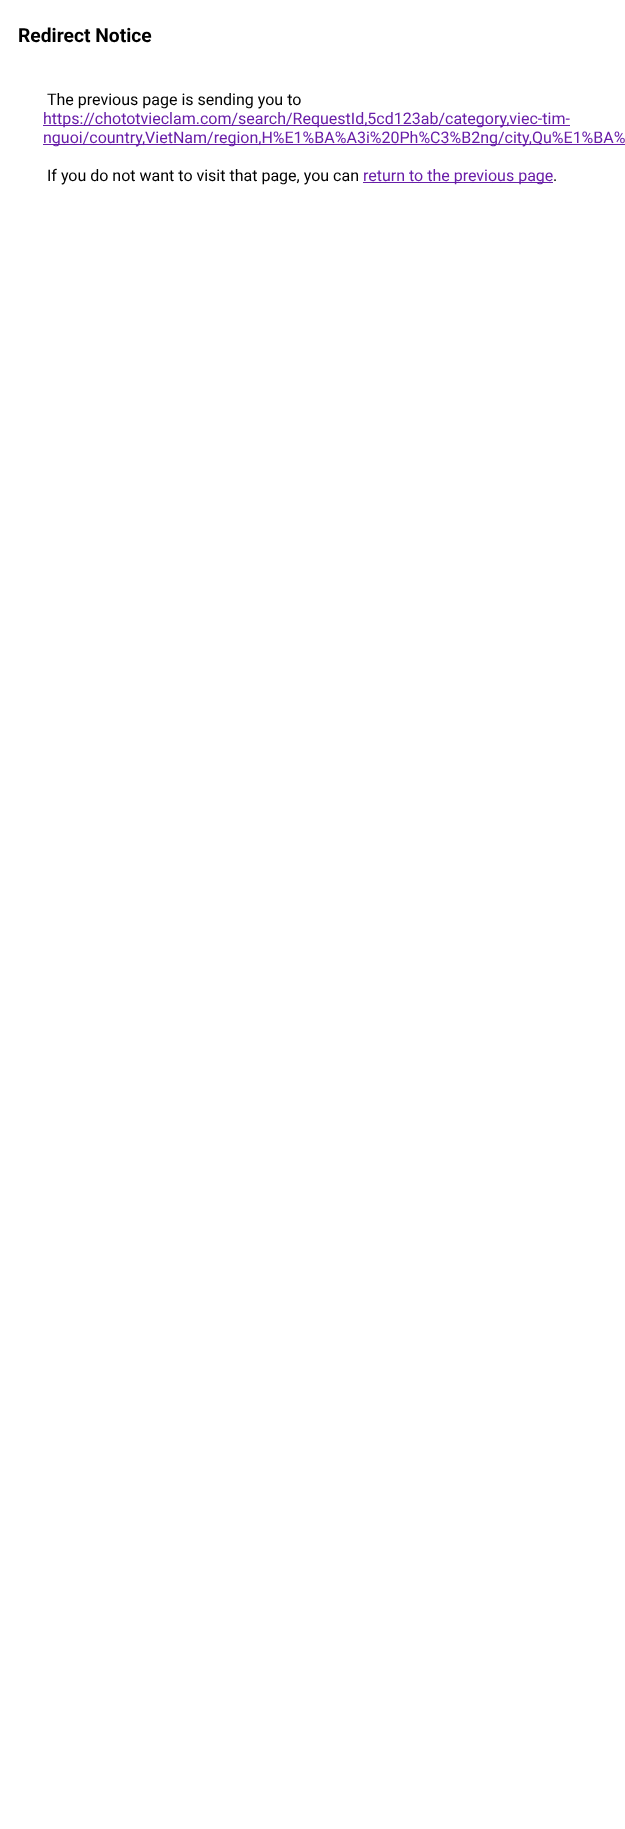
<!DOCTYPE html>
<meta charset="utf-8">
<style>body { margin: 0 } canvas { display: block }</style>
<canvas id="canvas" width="625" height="1829"></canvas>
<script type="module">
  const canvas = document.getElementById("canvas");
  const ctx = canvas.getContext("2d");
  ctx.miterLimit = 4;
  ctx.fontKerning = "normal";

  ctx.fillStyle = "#ffffff";
  ctx.fillRect(0, 0, 625, 1829);
  ctx.font = "bold 19.25px Roboto";
  ctx.fillStyle = "#000000";
  ctx.fillText("Redirect Notice", 18, 42);
  ctx.font = "16px Roboto";
  ctx.fillText("The previous page is sending you to", 47, 105);
  ctx.fillStyle = "#681da8";
  ctx.fillRect(43, 125, 527, 1);
  ctx.fillText("https://chototvieclam.com/search/RequestId,5cd123ab/category,viec-tim-", 43, 124);
  ctx.fillRect(43, 144, 582, 1);
  ctx.fillText("nguoi/country,VietNam/region,H%E1%BA%A3i%20Ph%C3%B2ng/city,Qu%E1%BA%", 43, 143);
  ctx.fillStyle = "#000000";
  ctx.fillText("If you do not want to visit that page, you can", 47, 181);
  ctx.fillStyle = "#681da8";
  ctx.fillRect(363, 182, 190, 1);
  ctx.fillText("return to the previous page", 363, 181);
  ctx.fillStyle = "#000000";
  ctx.fillText(".", 553, 181);
</script>
